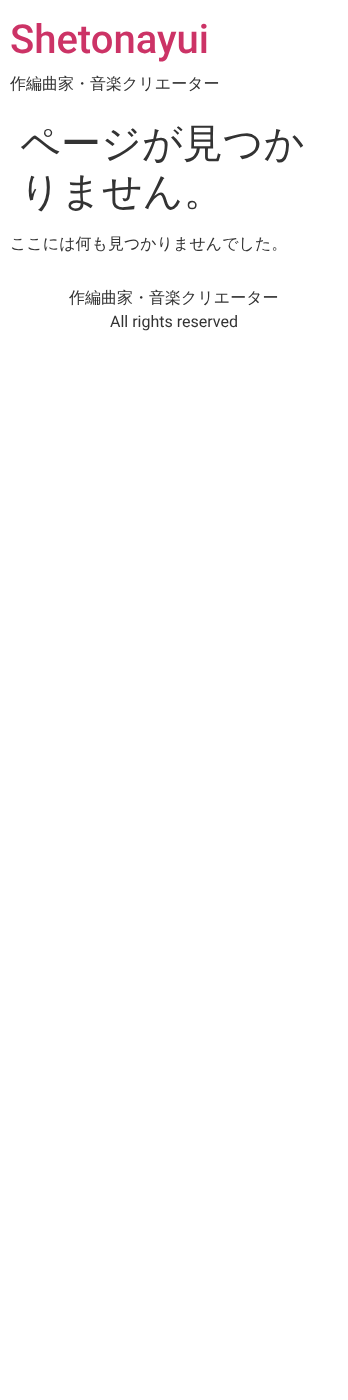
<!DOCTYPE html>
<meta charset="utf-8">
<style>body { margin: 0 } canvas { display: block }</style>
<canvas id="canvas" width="348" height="1400"></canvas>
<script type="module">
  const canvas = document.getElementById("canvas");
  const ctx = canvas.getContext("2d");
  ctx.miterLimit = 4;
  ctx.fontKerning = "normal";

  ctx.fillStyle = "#ffffff";
  ctx.fillRect(0, 0, 348, 1400);
  ctx.font = "500 40px Roboto";
  ctx.fillStyle = "#cc3366";
  ctx.fillText("Shetonayui", 10, 53);
  ctx.font = "500 16px WenQuanYi Zen Hei";
  ctx.fillStyle = "#333333";
  ctx.fillText("作編曲家・音楽クリエーター", 10, 89);
  ctx.font = "500 40px WenQuanYi Zen Hei";
  ctx.fillText("ページが見つか", 20, 157);
  ctx.fillText("りません。", 20, 205);
  ctx.font = "500 16px WenQuanYi Zen Hei";
  ctx.fillText("ここには何も見つかりませんでした。", 10, 249);
  ctx.fillText("作編曲家・音楽クリエーター", 69, 303);
  ctx.font = "16px Roboto";
  ctx.fillText("All rights reserved", 110, 327);
</script>
